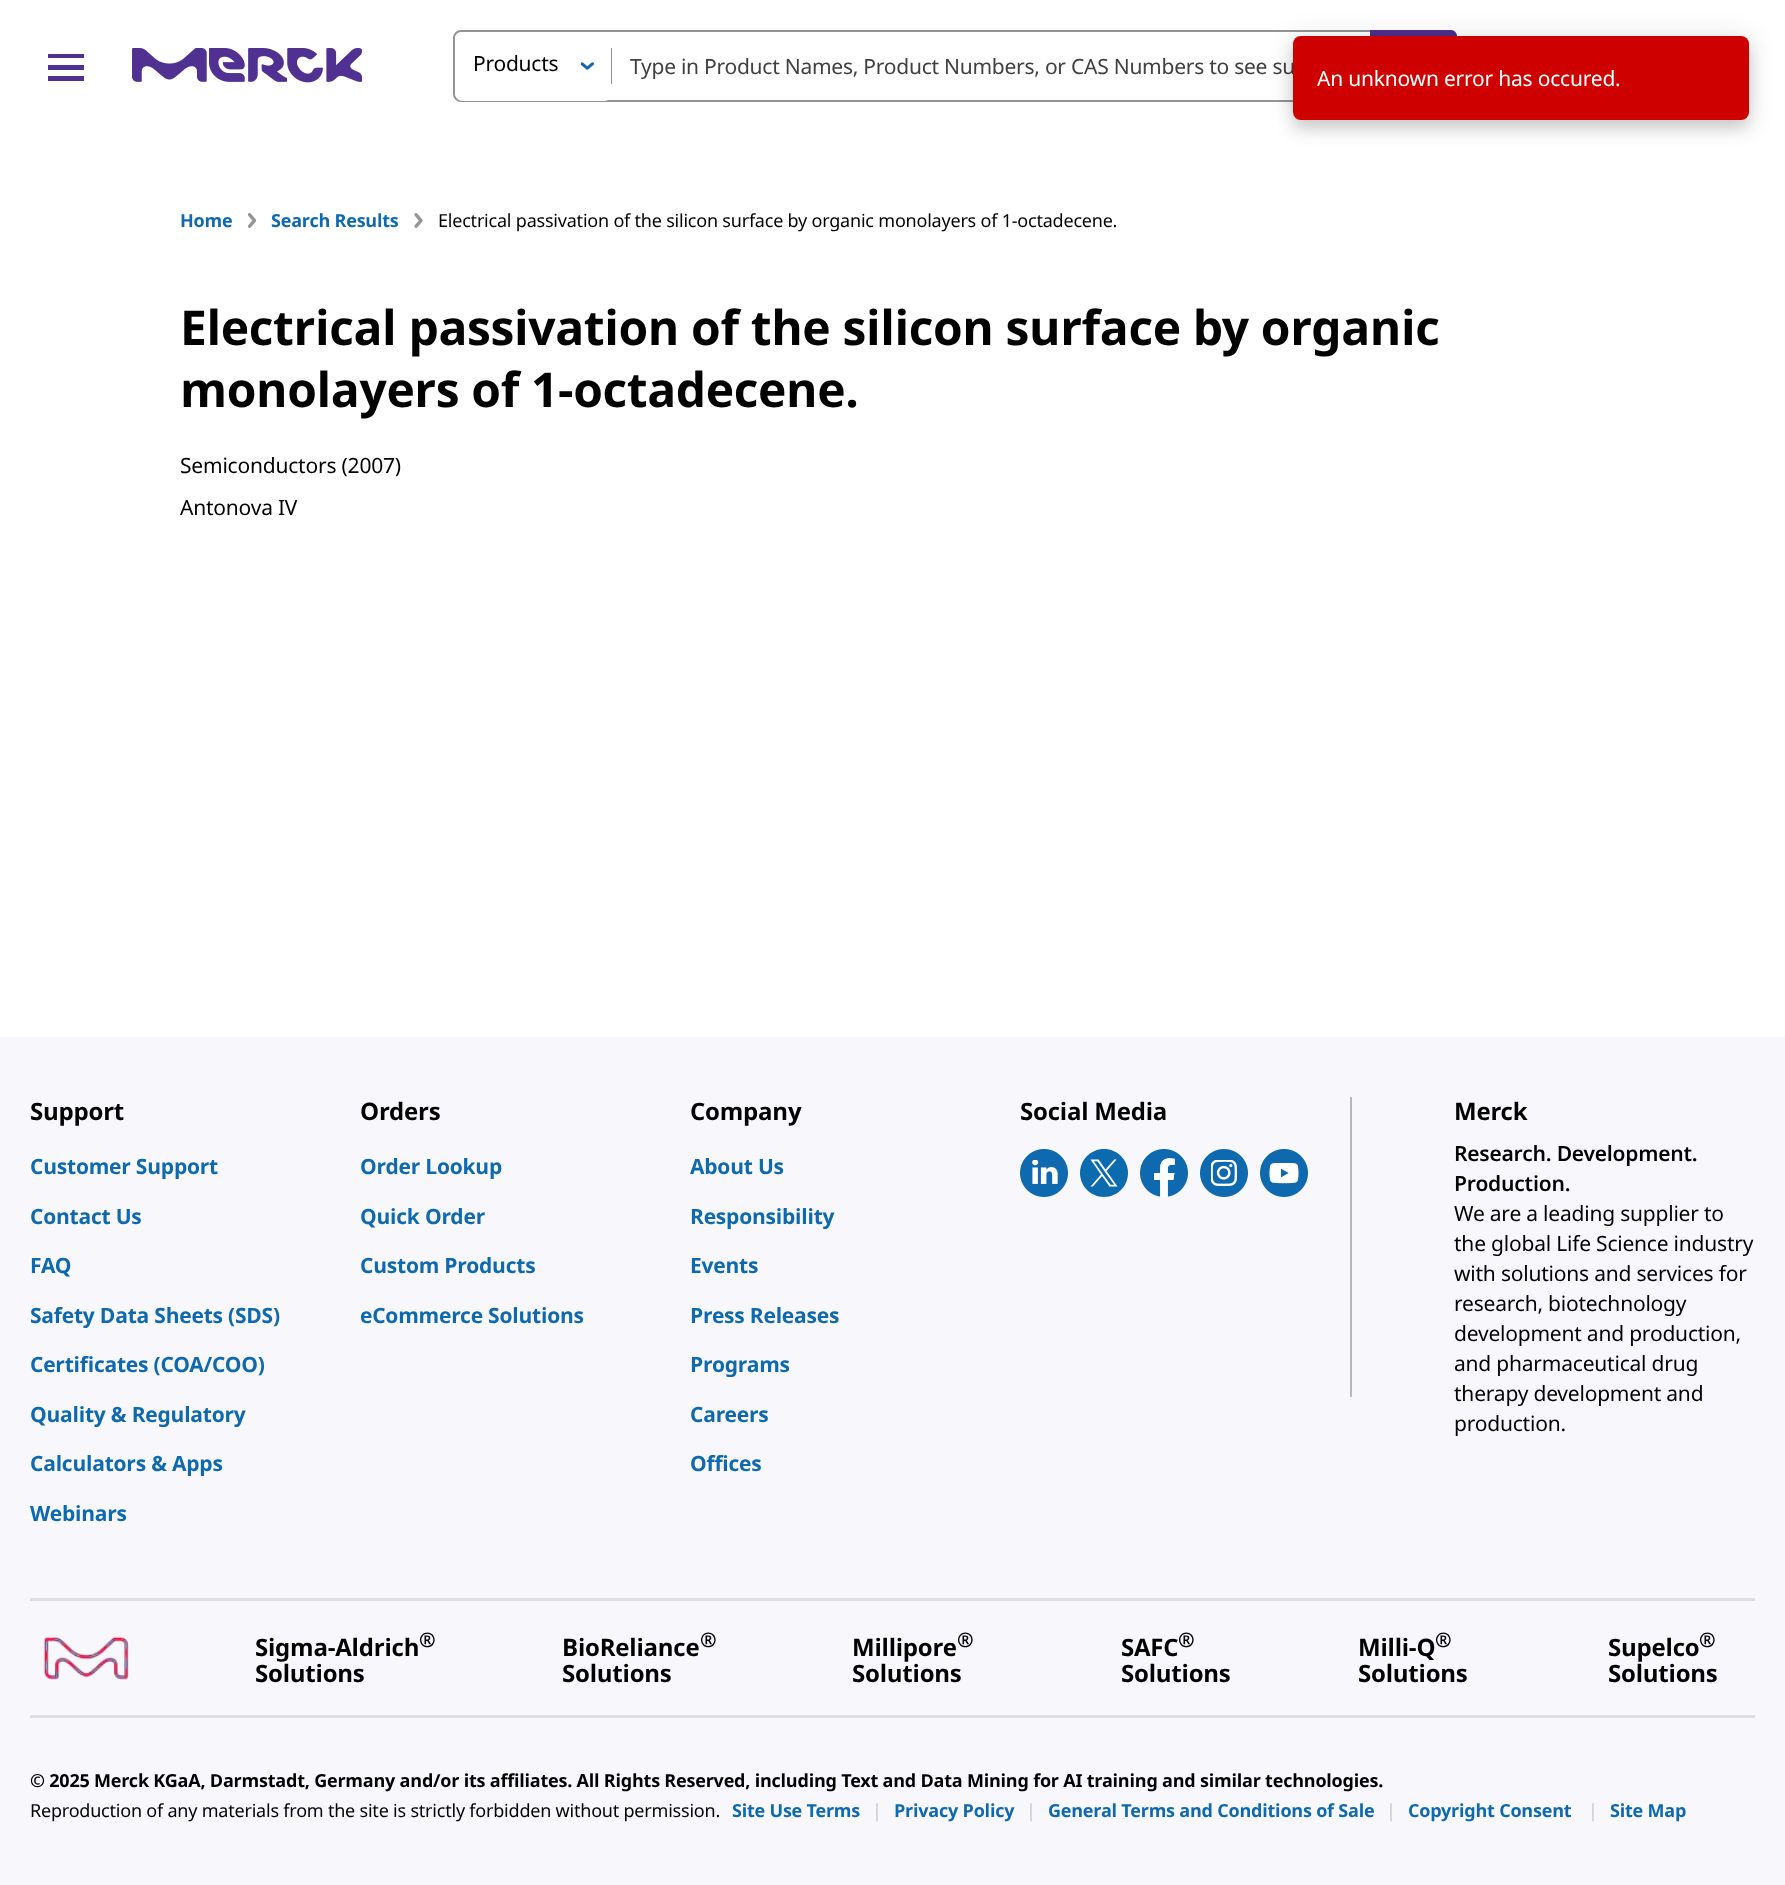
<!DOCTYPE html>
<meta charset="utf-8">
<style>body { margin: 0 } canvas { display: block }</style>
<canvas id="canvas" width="1785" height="1885"></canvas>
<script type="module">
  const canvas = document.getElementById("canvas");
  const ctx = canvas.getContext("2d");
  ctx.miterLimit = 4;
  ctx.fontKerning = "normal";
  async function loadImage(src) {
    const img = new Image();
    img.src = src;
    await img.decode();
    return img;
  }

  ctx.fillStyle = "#ffffff";
  ctx.fillRect(0, 0, 1785, 1885);
  ctx.save();
  ctx.beginPath();
  ctx.rect(48, 50, 36, 36);
  ctx.clip();
  ctx.fillStyle = "#503191";
  ctx.beginPath();
  ctx.moveTo(46, 81);
  ctx.lineTo(86, 81);
  ctx.lineTo(86, 76);
  ctx.lineTo(46, 76);
  ctx.closePath();
  ctx.moveTo(46, 70);
  ctx.lineTo(86, 70);
  ctx.lineTo(86, 65);
  ctx.lineTo(46, 65);
  ctx.closePath();
  ctx.moveTo(46, 54);
  ctx.lineTo(46, 58);
  ctx.lineTo(86, 58);
  ctx.lineTo(86, 54);
  ctx.closePath();
  ctx.fill();
  ctx.restore();
  ctx.drawImage(await loadImage("img1.png"), 132, 48, 231, 35);
  ctx.beginPath();
  ctx.roundRect(454, 31, 1002, 70, 7);
  ctx.strokeStyle = "#949494";
  ctx.lineWidth = 2;
  ctx.stroke();
  ctx.beginPath();
  ctx.roundRect(455, 32, 157, 69, 8);
  ctx.fill();
  ctx.letterSpacing = "-0.25px";
  ctx.font = "21px Noto Sans";
  ctx.fillStyle = "#000000";
  ctx.fillText("Products", 473, 71);
  ctx.fillStyle = "#949494";
  ctx.fillRect(611, 48, 1, 36);
  ctx.drawImage(await loadImage("img2.png"), 581, 62, 13, 8);
  ctx.fillStyle = "#404040";
  ctx.fillText("Type in Product Names, Product Numbers, or CAS Numbers to see su", 630, 74);
  ctx.fillStyle = "#503191";
  ctx.beginPath();
  ctx.roundRect(1371, 31, 85, 70, [0, 5, 5, 0]);
  ctx.fill();
  ctx.strokeStyle = "#503191";
  ctx.stroke();
  ctx.letterSpacing = "-0.21px";
  ctx.font = "bold 18px Noto Sans";
  ctx.fillStyle = "#0f69af";
  ctx.fillText("Home", 180, 227);
  ctx.drawImage(await loadImage("img3.png"), 247, 213, 10, 15);
  ctx.fillText("Search Results", 271, 227);
  ctx.drawImage(await loadImage("img4.png"), 414, 213, 9, 15);
  ctx.font = "18px Noto Sans";
  ctx.fillStyle = "#000000";
  ctx.fillText("Electrical passivation of the silicon surface by organic monolayers of 1-octadecene.", 438, 227);
  ctx.letterSpacing = "-0.38px";
  ctx.font = "bold 48px Noto Sans";
  ctx.fillText("Electrical passivation of the silicon surface by organic", 180, 345);
  ctx.fillText("monolayers of 1-octadecene.", 180, 407);
  ctx.letterSpacing = "-0.21px";
  ctx.font = "21px Noto Sans";
  ctx.fillText("Semiconductors (2007)", 180, 473);
  ctx.fillText("Antonova IV", 180, 515);
  ctx.fillStyle = "#f8f8fc";
  ctx.fillRect(0, 1037, 1785, 848);
  ctx.font = "bold 24px Noto Sans";
  ctx.fillStyle = "#000000";
  ctx.fillText("Support", 30, 1120);
  ctx.font = "bold 21px Noto Sans";
  ctx.fillStyle = "#0f69af";
  ctx.fillText("Customer Support", 30, 1174);
  ctx.fillText("Contact Us", 30, 1224);
  ctx.fillText("FAQ", 30, 1273);
  ctx.fillText("Safety Data Sheets (SDS)", 30, 1323);
  ctx.fillText("Certificates (COA/COO)", 30, 1372);
  ctx.fillText("Quality & Regulatory", 30, 1422);
  ctx.fillText("Calculators & Apps", 30, 1471);
  ctx.fillText("Webinars", 30, 1521);
  ctx.font = "bold 24px Noto Sans";
  ctx.fillStyle = "#000000";
  ctx.fillText("Orders", 360, 1120);
  ctx.font = "bold 21px Noto Sans";
  ctx.fillStyle = "#0f69af";
  ctx.fillText("Order Lookup", 360, 1174);
  ctx.fillText("Quick Order", 360, 1224);
  ctx.fillText("Custom Products", 360, 1273);
  ctx.fillText("eCommerce Solutions", 360, 1323);
  ctx.font = "bold 24px Noto Sans";
  ctx.fillStyle = "#000000";
  ctx.fillText("Company", 690, 1120);
  ctx.font = "bold 21px Noto Sans";
  ctx.fillStyle = "#0f69af";
  ctx.fillText("About Us", 690, 1174);
  ctx.fillText("Responsibility", 690, 1224);
  ctx.fillText("Events", 690, 1273);
  ctx.fillText("Press Releases", 690, 1323);
  ctx.fillText("Programs", 690, 1372);
  ctx.fillText("Careers", 690, 1422);
  ctx.fillText("Offices", 690, 1471);
  ctx.font = "bold 24px Noto Sans";
  ctx.fillStyle = "#000000";
  ctx.fillText("Social Media", 1020, 1120);
  ctx.drawImage(await loadImage("img5.png"), 1020, 1149, 48, 48);
  ctx.drawImage(await loadImage("img6.png"), 1080, 1149, 48, 48);
  ctx.drawImage(await loadImage("img7.png"), 1140, 1149, 48, 48);
  ctx.drawImage(await loadImage("img8.png"), 1200, 1149, 48, 48);
  ctx.drawImage(await loadImage("img9.png"), 1260, 1149, 48, 48);
  ctx.fillStyle = "#b8b8ba";
  ctx.fillRect(1350, 1097, 2, 300);
  ctx.fillStyle = "#000000";
  ctx.fillText("Merck", 1454, 1120);
  ctx.font = "600 21px Noto Sans";
  ctx.fillText("Research. Development.", 1454, 1161);
  ctx.fillText("Production.", 1454, 1191);
  ctx.font = "21px Noto Sans";
  ctx.fillText("We are a leading supplier to", 1454, 1221);
  ctx.fillText("the global Life Science industry", 1454, 1251);
  ctx.fillText("with solutions and services for", 1454, 1281);
  ctx.fillText("research, biotechnology", 1454, 1311);
  ctx.fillText("development and production,", 1454, 1341);
  ctx.fillText("and pharmaceutical drug", 1454, 1371);
  ctx.fillText("therapy development and", 1454, 1401);
  ctx.fillText("production.", 1454, 1431);
  ctx.fillStyle = "#dfdfe3";
  ctx.fillRect(30, 1598, 1725, 3);
  ctx.fillRect(30, 1715, 1725, 3);
  ctx.drawImage(await loadImage("img10.png"), 43, 1636, 86, 44);
  ctx.font = "bold 24px Noto Sans";
  ctx.fillStyle = "#000000";
  ctx.fillText("Sigma-Aldrich", 255, 1656);
  ctx.font = "bold 20px Noto Sans";
  ctx.fillText("®", 419, 1647);
  ctx.font = "bold 24px Noto Sans";
  ctx.fillText("Solutions", 255, 1682);
  ctx.fillText("BioReliance", 562, 1656);
  ctx.font = "bold 20px Noto Sans";
  ctx.fillText("®", 700, 1647);
  ctx.font = "bold 24px Noto Sans";
  ctx.fillText("Solutions", 562, 1682);
  ctx.fillText("Millipore", 852, 1656);
  ctx.font = "bold 20px Noto Sans";
  ctx.fillText("®", 957, 1647);
  ctx.font = "bold 24px Noto Sans";
  ctx.fillText("Solutions", 852, 1682);
  ctx.fillText("SAFC", 1121, 1656);
  ctx.font = "bold 20px Noto Sans";
  ctx.fillText("®", 1178, 1647);
  ctx.font = "bold 24px Noto Sans";
  ctx.fillText("Solutions", 1121, 1682);
  ctx.fillText("Milli-Q", 1358, 1656);
  ctx.font = "bold 20px Noto Sans";
  ctx.fillText("®", 1435, 1647);
  ctx.font = "bold 24px Noto Sans";
  ctx.fillText("Solutions", 1358, 1682);
  ctx.fillText("Supelco", 1608, 1656);
  ctx.font = "bold 20px Noto Sans";
  ctx.fillText("®", 1699, 1647);
  ctx.font = "bold 24px Noto Sans";
  ctx.fillText("Solutions", 1608, 1682);
  ctx.font = "bold 18px Noto Sans";
  ctx.fillText("© 2025 Merck KGaA, Darmstadt, Germany and/or its affiliates. All Rights Reserved, including Text and Data Mining for AI training and similar technologies.", 30, 1787);
  ctx.font = "18px Noto Sans";
  ctx.fillText("Reproduction of any materials from the site is strictly forbidden without permission.", 30, 1817);
  ctx.font = "bold 18px Noto Sans";
  ctx.fillStyle = "#0f69af";
  ctx.fillText("Site Use Terms", 732, 1817);
  ctx.font = "18px Noto Sans";
  ctx.fillStyle = "#c9c9c9";
  ctx.fillText("|", 872, 1817);
  ctx.font = "bold 18px Noto Sans";
  ctx.fillStyle = "#0f69af";
  ctx.fillText("Privacy Policy", 894, 1817);
  ctx.font = "18px Noto Sans";
  ctx.fillStyle = "#c9c9c9";
  ctx.fillText("|", 1026, 1817);
  ctx.font = "bold 18px Noto Sans";
  ctx.fillStyle = "#0f69af";
  ctx.fillText("General Terms and Conditions of Sale", 1048, 1817);
  ctx.font = "18px Noto Sans";
  ctx.fillStyle = "#c9c9c9";
  ctx.fillText("|", 1386, 1817);
  ctx.font = "bold 18px Noto Sans";
  ctx.fillStyle = "#0f69af";
  ctx.fillText("Copyright Consent", 1408, 1817);
  ctx.font = "18px Noto Sans";
  ctx.fillStyle = "#c9c9c9";
  ctx.fillText("|", 1588, 1817);
  ctx.font = "bold 18px Noto Sans";
  ctx.fillStyle = "#0f69af";
  ctx.fillText("Site Map", 1610, 1817);
  ctx.fillStyle = "rgba(0, 0, 0, 0.12)";
  ctx.filter = "blur(13.5px)";
  ctx.beginPath();
  ctx.roundRect(1293, 38, 456, 84, 8);
  ctx.fill();
  ctx.filter = "none";
  ctx.fillStyle = "rgba(0, 0, 0, 0.14)";
  ctx.filter = "blur(7.5px)";
  ctx.beginPath();
  ctx.roundRect(1293, 45, 456, 84, 8);
  ctx.fill();
  ctx.filter = "none";
  ctx.fillStyle = "#ce0000";
  ctx.beginPath();
  ctx.roundRect(1293, 36, 456, 84, 8);
  ctx.fill();
  ctx.font = "21px Noto Sans";
  ctx.fillStyle = "#ffffff";
  ctx.fillText("An unknown error has occured.", 1317, 86);
</script>
